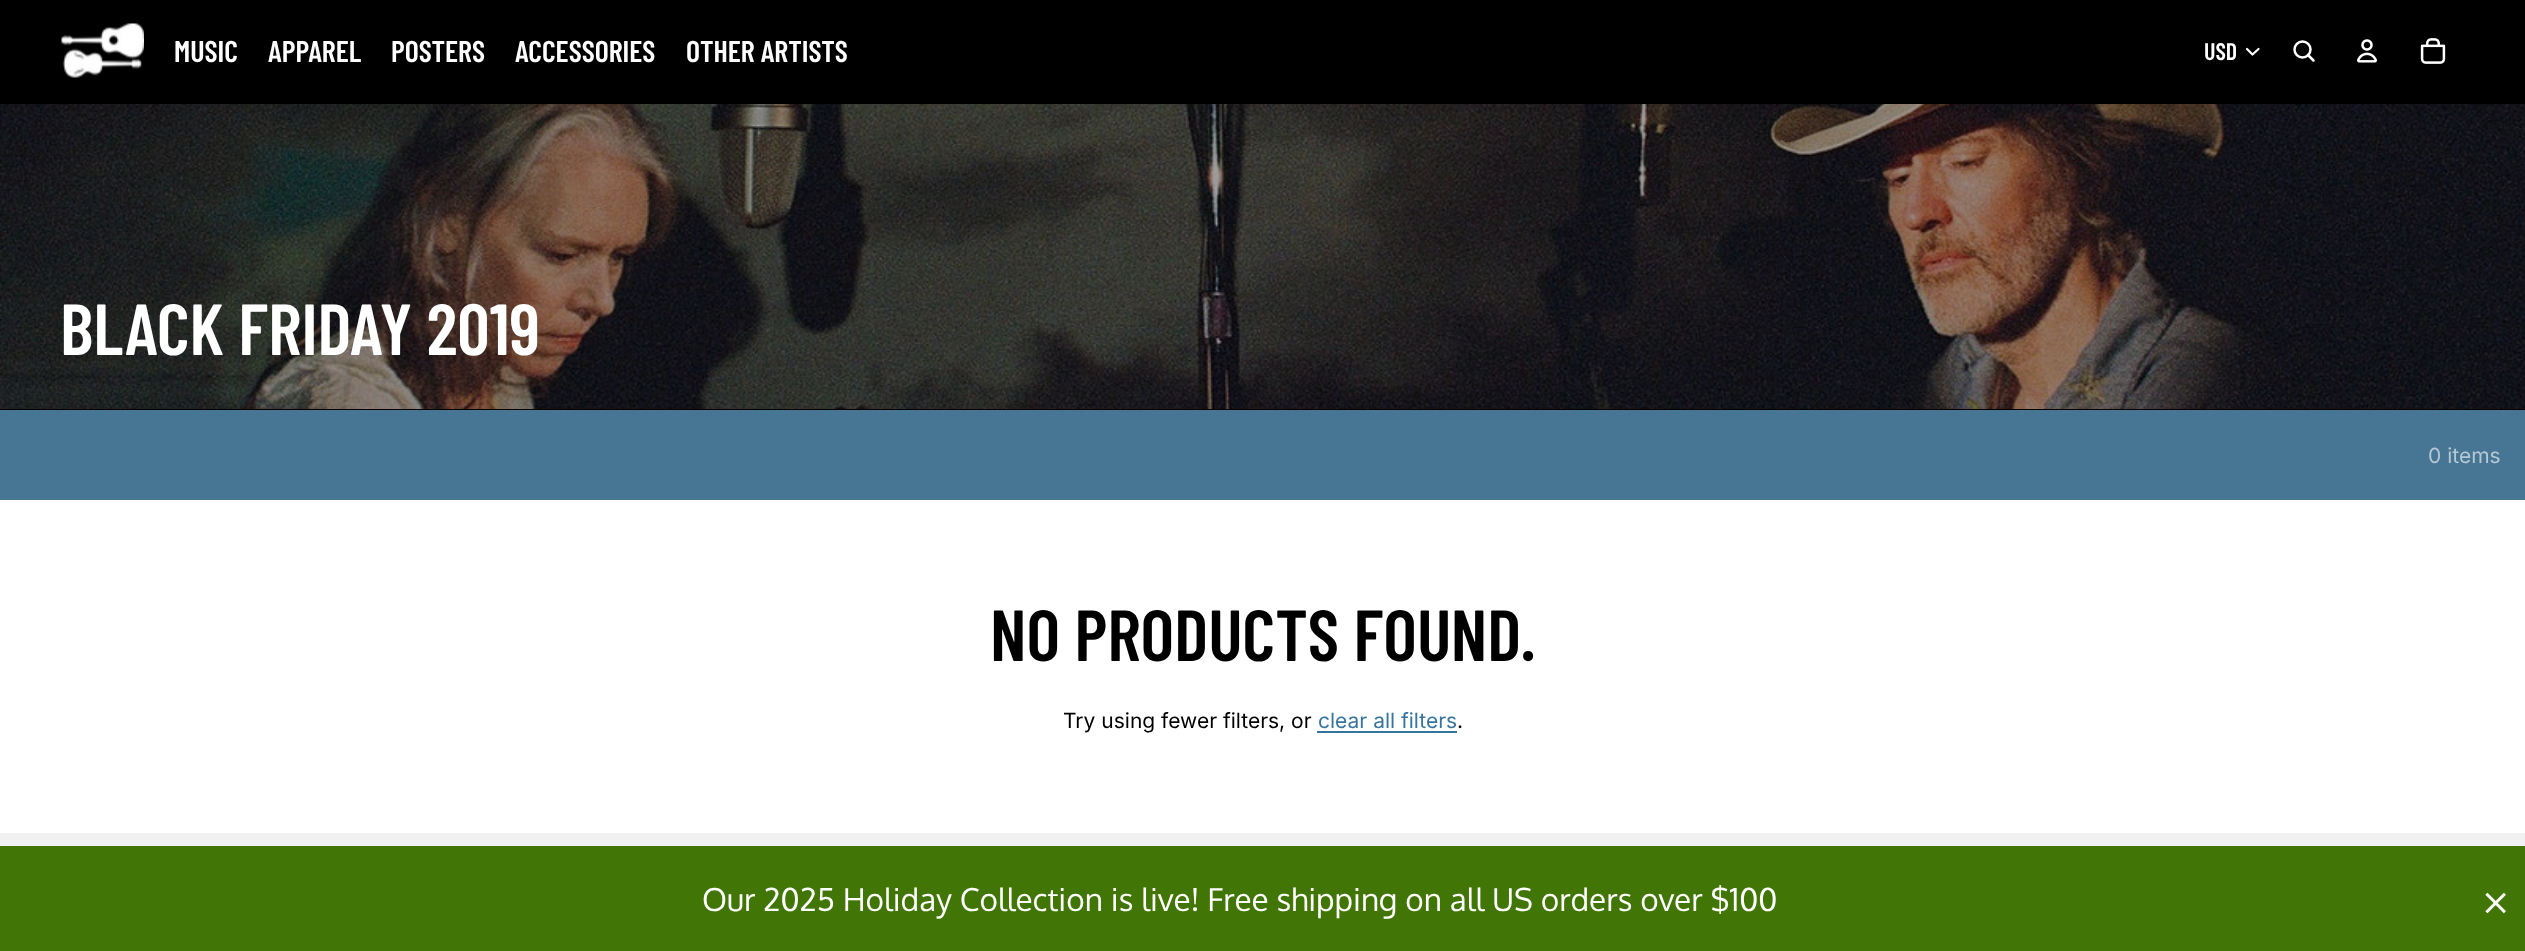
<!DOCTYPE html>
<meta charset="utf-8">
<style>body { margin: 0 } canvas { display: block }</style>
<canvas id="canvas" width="2525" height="951"></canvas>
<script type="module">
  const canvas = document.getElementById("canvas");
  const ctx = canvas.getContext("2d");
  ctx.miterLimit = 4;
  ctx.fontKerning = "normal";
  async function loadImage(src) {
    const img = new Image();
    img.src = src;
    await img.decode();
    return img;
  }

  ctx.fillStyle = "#ffffff";
  ctx.fillRect(0, 0, 2525, 951);
  ctx.fillStyle = "#000000";
  ctx.fillRect(0, 0, 2525, 104);
  ctx.drawImage(await loadImage("img1.png"), 61, 23, 83, 55);
  ctx.font = "600 30px Barlow Condensed";
  ctx.fillStyle = "#ffffff";
  ctx.fillText("MUSIC", 174, 62);
  ctx.fillText("APPAREL", 268, 62);
  ctx.fillText("POSTERS", 391, 62);
  ctx.fillText("ACCESSORIES", 515, 62);
  ctx.fillText("OTHER ARTISTS", 686, 62);
  ctx.font = "600 24px Barlow Condensed";
  ctx.fillText("USD", 2204, 60);
  ctx.beginPath();
  ctx.moveTo(2258.5, 49);
  ctx.lineTo(2252.5, 54.5);
  ctx.lineTo(2247, 49);
  ctx.strokeStyle = "#ffffff";
  ctx.lineWidth = 2.2;
  ctx.lineCap = "round";
  ctx.lineJoin = "round";
  ctx.stroke();
  ctx.beginPath();
  ctx.arc(2302.5, 49.5, 8, 0, Math.PI * 2);
  ctx.lineWidth = 2.5;
  ctx.stroke();
  ctx.beginPath();
  ctx.moveTo(2308, 55);
  ctx.lineTo(2313.5, 60.5);
  ctx.stroke();
  ctx.drawImage(await loadImage("img2.png"), 2357, 39, 20, 24);
  ctx.drawImage(await loadImage("img3.png"), 2420, 38, 26, 26);
  ctx.drawImage(await loadImage("img4.png"), 0, 104, 2525, 305);
  ctx.font = "600 72px Barlow Condensed";
  ctx.fillText("BLACK FRIDAY 2019", 60, 355);
  ctx.fillStyle = "#000000";
  ctx.fillRect(0, 409, 2525, 1);
  ctx.fillStyle = "#477594";
  ctx.fillRect(0, 410, 2525, 90);
  ctx.font = "21px Inter";
  ctx.fillStyle = "#b5c8d4";
  ctx.fillText("0 items", 2428, 463);
  ctx.font = "600 72px Barlow Condensed";
  ctx.fillStyle = "#000000";
  ctx.fillText("NO PRODUCTS FOUND.", 990, 661);
  ctx.font = "21px Inter";
  ctx.fillText("Try using fewer filters, or", 1063, 728);
  ctx.fillStyle = "#38759e";
  ctx.fillText("clear all filters", 1318, 728);
  ctx.fillRect(1317, 731, 140, 2);
  ctx.fillStyle = "#000000";
  ctx.fillText(".", 1457, 728);
  ctx.fillStyle = "#f1f1f1";
  ctx.fillRect(0, 833, 2525, 13);
  ctx.fillStyle = "#417505";
  ctx.fillRect(0, 846, 2525, 105);
  ctx.font = "31.5px Oxygen";
  ctx.fillStyle = "#ffffff";
  ctx.fillText("Our 2025 Holiday Collection is live! Free shipping on all US orders over $100", 702, 911);
  ctx.drawImage(await loadImage("img5.png"), 2485, 892, 21, 22);
</script>
